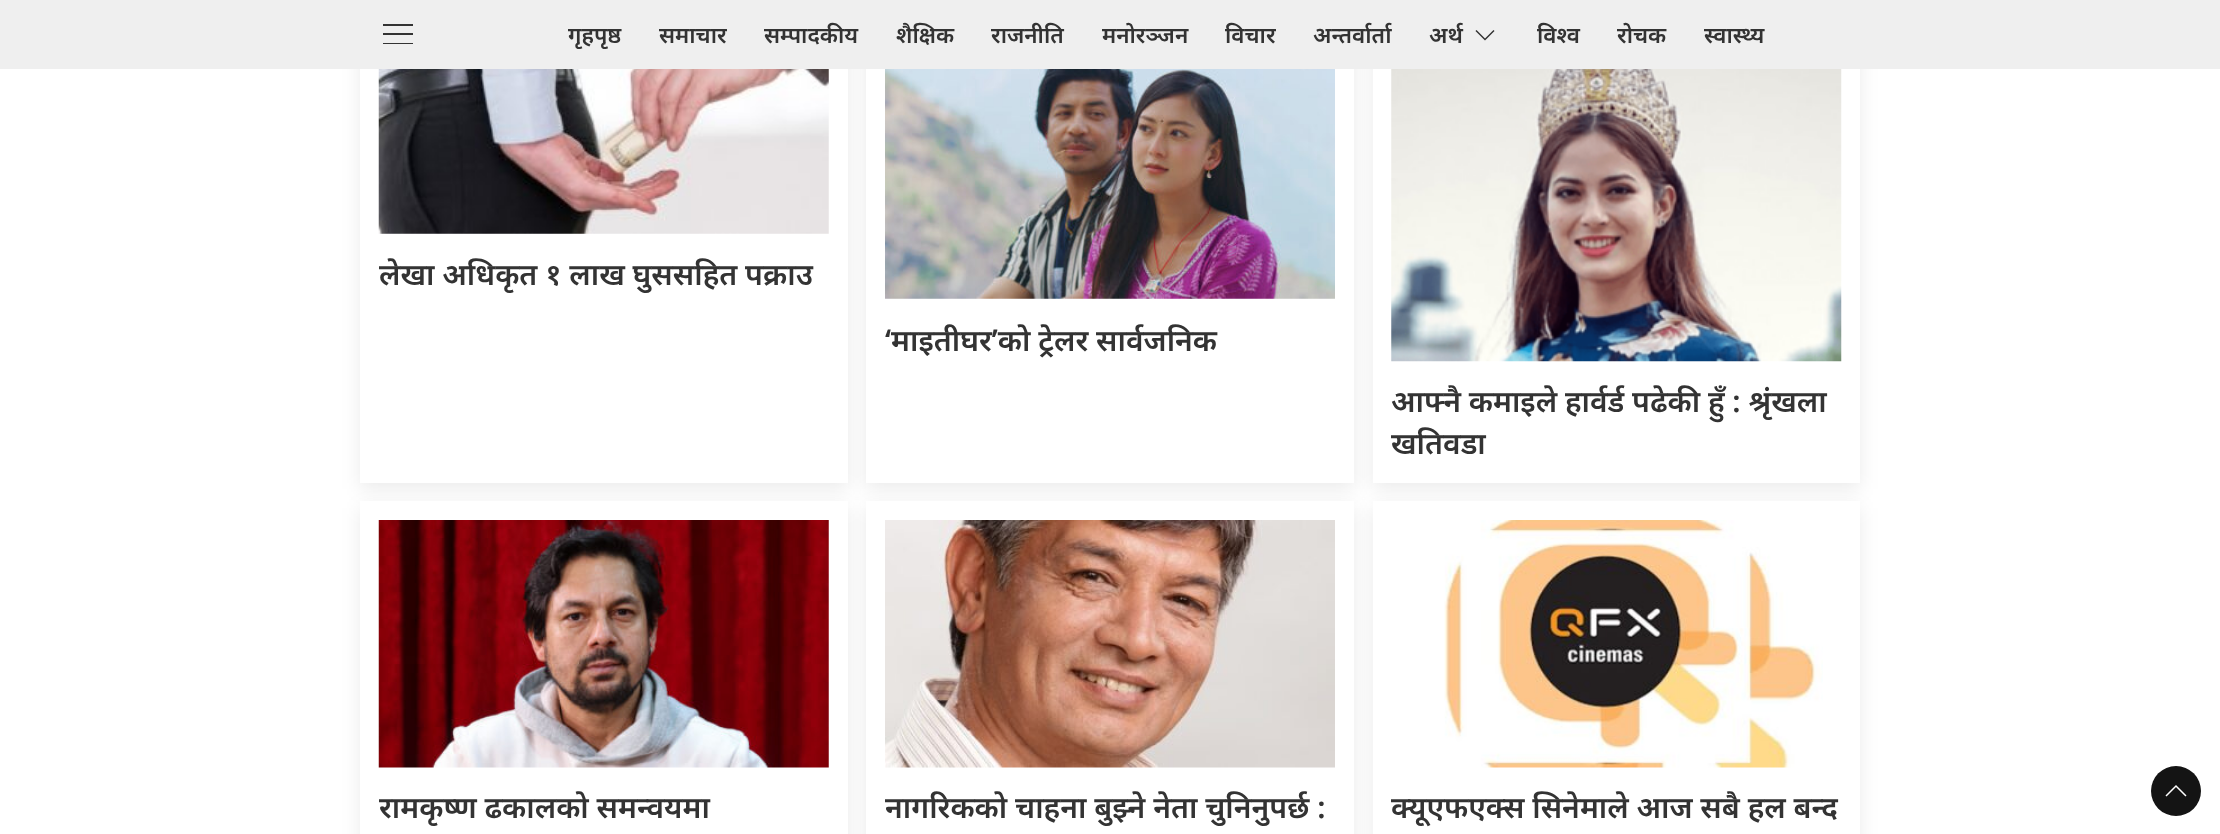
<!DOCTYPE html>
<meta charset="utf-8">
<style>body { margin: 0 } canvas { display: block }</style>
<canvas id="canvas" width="2220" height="834"></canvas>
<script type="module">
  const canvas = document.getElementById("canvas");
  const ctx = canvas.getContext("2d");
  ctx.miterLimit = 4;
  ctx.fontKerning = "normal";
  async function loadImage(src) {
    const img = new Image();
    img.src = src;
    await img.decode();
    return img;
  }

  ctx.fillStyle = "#ffffff";
  ctx.fillRect(0, 0, 2220, 834);
  ctx.fillStyle = "rgba(0, 0, 0, 0.08)";
  ctx.filter = "blur(9.5px)";
  ctx.beginPath();
  ctx.rect(360, 40, 488, 449);
  ctx.fill();
  ctx.filter = "none";
  ctx.fillStyle = "#ffffff";
  ctx.fillRect(360, 69, 488, 414);
  ctx.fillStyle = "rgba(0, 0, 0, 0.08)";
  ctx.filter = "blur(9.5px)";
  ctx.beginPath();
  ctx.rect(866, 40, 488, 449);
  ctx.fill();
  ctx.filter = "none";
  ctx.fillStyle = "#ffffff";
  ctx.fillRect(866, 69, 488, 414);
  ctx.fillStyle = "rgba(0, 0, 0, 0.08)";
  ctx.filter = "blur(9.5px)";
  ctx.beginPath();
  ctx.rect(1373, 40, 487, 449);
  ctx.fill();
  ctx.filter = "none";
  ctx.fillStyle = "#efefef";
  ctx.fillRect(0, 0, 2220, 69);
  ctx.fillStyle = "#333333";
  ctx.fillRect(383, 24, 30, 2);
  ctx.fillRect(383, 33, 30, 2);
  ctx.fillRect(383, 43, 30, 1);
  ctx.font = "600 22.5px Noto Sans";
  ctx.fillText("गृहपृष्ठ", 568, 43);
  ctx.fillText("समाचार", 659, 43);
  ctx.fillText("सम्पादकीय", 764, 43);
  ctx.fillText("शैक्षिक", 896, 43);
  ctx.fillText("राजनीति", 991, 43);
  ctx.fillText("मनोरञ्जन", 1102, 43);
  ctx.fillText("विचार", 1225, 43);
  ctx.fillText("अन्तर्वार्ता", 1313, 43);
  ctx.fillText("अर्थ", 1429, 43);
  ctx.beginPath();
  ctx.moveTo(1494, 30.5);
  ctx.lineTo(1485, 39.5);
  ctx.lineTo(1476, 30.5);
  ctx.strokeStyle = "#333333";
  ctx.lineWidth = 1.5;
  ctx.stroke();
  ctx.fillText("विश्व", 1537, 43);
  ctx.fillText("रोचक", 1617, 43);
  ctx.fillText("स्वास्थ्य", 1704, 43);
  ctx.drawImage(await loadImage("img1.png"), 378, 69, 451, 165);
  ctx.font = "600 30px Noto Sans";
  ctx.fillText("लेखा अधिकृत १ लाख घुससहित पक्राउ", 379, 285);
  ctx.drawImage(await loadImage("img2.png"), 885, 69, 450, 230);
  ctx.fillText("‘माइतीघर’को ट्रेलर सार्वजनिक", 885, 351);
  ctx.fillStyle = "#ffffff";
  ctx.fillRect(1373, 69, 487, 414);
  ctx.drawImage(await loadImage("img3.png"), 1391, 69, 451, 293);
  ctx.fillStyle = "#333333";
  ctx.fillText("आफ्नै कमाइले हार्वर्ड पढेकी हुँ : श्रृंखला", 1391, 412);
  ctx.fillText("खतिवडा", 1391, 454);
  ctx.fillStyle = "rgba(0, 0, 0, 0.08)";
  ctx.filter = "blur(9.5px)";
  ctx.beginPath();
  ctx.rect(360, 508, 488, 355);
  ctx.fill();
  ctx.filter = "none";
  ctx.fillStyle = "#ffffff";
  ctx.fillRect(360, 501, 488, 333);
  ctx.drawImage(await loadImage("img4.png"), 378, 520, 451, 248);
  ctx.fillStyle = "#333333";
  ctx.fillText("रामकृष्ण ढकालको समन्वयमा", 379, 818);
  ctx.fillStyle = "rgba(0, 0, 0, 0.08)";
  ctx.filter = "blur(9.5px)";
  ctx.beginPath();
  ctx.rect(866, 508, 488, 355);
  ctx.fill();
  ctx.filter = "none";
  ctx.fillStyle = "#ffffff";
  ctx.fillRect(866, 501, 488, 333);
  ctx.drawImage(await loadImage("img5.png"), 885, 520, 450, 248);
  ctx.fillStyle = "#333333";
  ctx.fillText("नागरिकको चाहना बुझ्ने नेता चुनिनुपर्छ :", 885, 818);
  ctx.fillStyle = "rgba(0, 0, 0, 0.08)";
  ctx.filter = "blur(9.5px)";
  ctx.beginPath();
  ctx.rect(1373, 508, 487, 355);
  ctx.fill();
  ctx.filter = "none";
  ctx.fillStyle = "#ffffff";
  ctx.fillRect(1373, 501, 487, 333);
  ctx.drawImage(await loadImage("img6.png"), 1444, 520, 379, 248);
  ctx.fillStyle = "#333333";
  ctx.fillText("क्यूएफएक्स सिनेमाले आज सबै हल बन्द", 1391, 818);
  ctx.fillStyle = "#141414";
  ctx.beginPath();
  ctx.arc(2176, 791, 25, 0, Math.PI * 2);
  ctx.fill();
  ctx.beginPath();
  ctx.moveTo(2166, 796);
  ctx.lineTo(2176, 786);
  ctx.lineTo(2186, 796);
  ctx.strokeStyle = "#ffffff";
  ctx.stroke();
</script>
